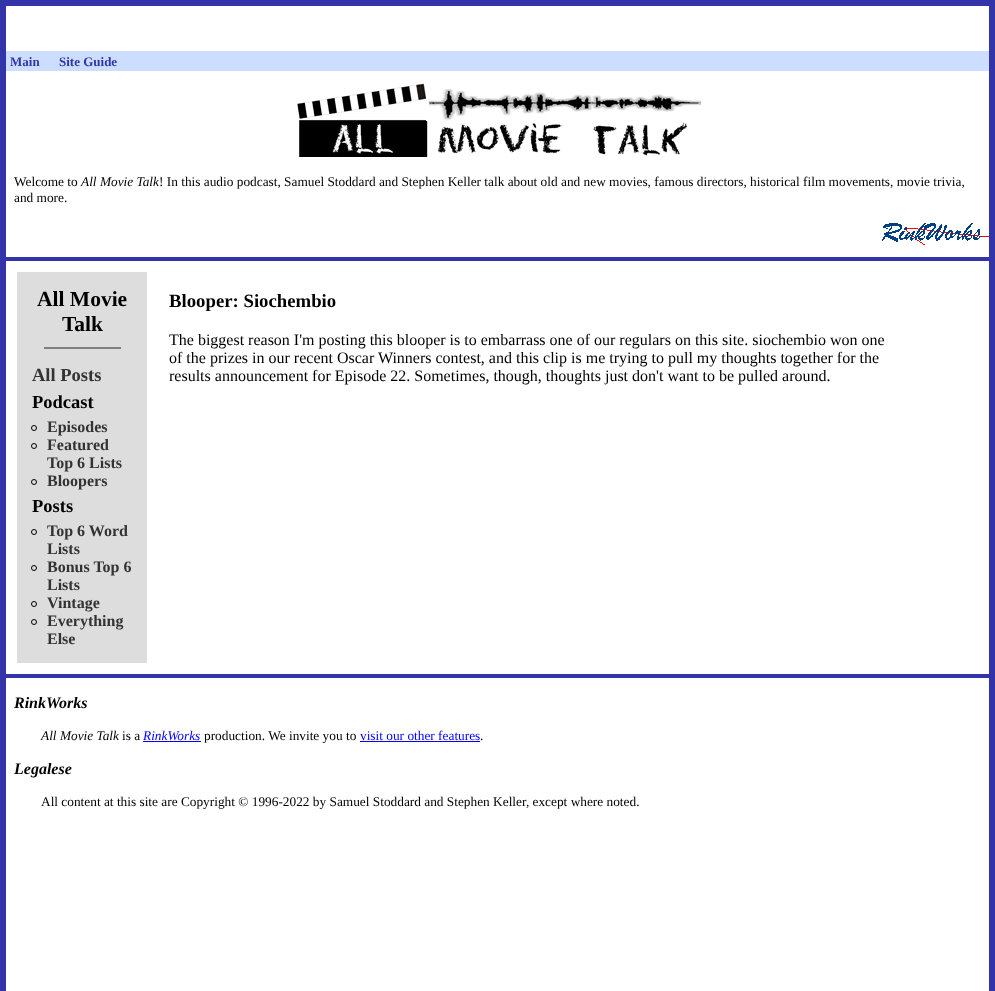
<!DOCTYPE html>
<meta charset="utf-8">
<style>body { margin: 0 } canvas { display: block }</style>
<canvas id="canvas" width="995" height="991"></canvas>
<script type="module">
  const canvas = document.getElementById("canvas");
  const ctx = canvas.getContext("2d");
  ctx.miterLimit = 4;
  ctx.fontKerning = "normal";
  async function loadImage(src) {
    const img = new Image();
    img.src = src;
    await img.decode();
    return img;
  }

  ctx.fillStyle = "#ffffff";
  ctx.fillRect(0, 0, 995, 991);
  ctx.strokeStyle = "#3333aa";
  ctx.lineWidth = 6;
  ctx.strokeRect(3, 3, 989, 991);
  ctx.fillStyle = "#ccddff";
  ctx.fillRect(6, 51, 983, 20);
  ctx.font = "bold 13px Liberation Serif";
  ctx.fillStyle = "#3333aa";
  ctx.fillText("Main", 10, 66);
  ctx.fillText("Site Guide", 59, 66);
  ctx.drawImage(await loadImage("img1.png"), 297, 83, 405, 74);
  ctx.font = "13.33px Liberation Serif";
  ctx.fillStyle = "#000000";
  ctx.fillText("Welcome to", 14, 186);
  ctx.font = "italic 13.33px Liberation Serif";
  ctx.fillText("All Movie Talk", 81, 186);
  ctx.font = "13.33px Liberation Serif";
  ctx.fillText("! In this audio podcast, Samuel Stoddard and Stephen Keller talk about old and new movies, famous directors, historical film movements, movie trivia,", 159, 186);
  ctx.fillText("and more.", 14, 202);
  ctx.drawImage(await loadImage("img2.png"), 882, 223, 107, 22);
  ctx.fillStyle = "#3333aa";
  ctx.fillRect(6, 257, 983, 4);
  ctx.fillStyle = "#dddddd";
  ctx.fillRect(17, 272, 130, 391);
  ctx.font = "bold 21.5px Liberation Serif";
  ctx.fillStyle = "#000000";
  ctx.fillText("All Movie", 37, 306);
  ctx.fillText("Talk", 62, 331);
  ctx.fillStyle = "#808080";
  ctx.fillRect(44, 347, 77, 2);
  ctx.font = "bold 18.5px Liberation Serif";
  ctx.fillStyle = "#333333";
  ctx.fillText("All Posts", 32, 381);
  ctx.fillStyle = "#000000";
  ctx.fillText("Podcast", 32, 408);
  ctx.beginPath();
  ctx.arc(34, 428, 2.5, 0, Math.PI * 2);
  ctx.strokeStyle = "#000000";
  ctx.lineWidth = 1;
  ctx.stroke();
  ctx.font = "bold 16px Liberation Serif";
  ctx.fillStyle = "#333333";
  ctx.fillText("Episodes", 47, 432);
  ctx.beginPath();
  ctx.arc(34, 446, 2.5, 0, Math.PI * 2);
  ctx.stroke();
  ctx.fillText("Featured", 47, 450);
  ctx.fillText("Top 6 Lists", 47, 468);
  ctx.beginPath();
  ctx.arc(34, 482, 2.5, 0, Math.PI * 2);
  ctx.stroke();
  ctx.fillText("Bloopers", 47, 486);
  ctx.font = "bold 18.5px Liberation Serif";
  ctx.fillStyle = "#000000";
  ctx.fillText("Posts", 32, 512);
  ctx.beginPath();
  ctx.arc(34, 532, 2.5, 0, Math.PI * 2);
  ctx.stroke();
  ctx.font = "bold 16px Liberation Serif";
  ctx.fillStyle = "#333333";
  ctx.fillText("Top 6 Word", 47, 536);
  ctx.fillText("Lists", 47, 554);
  ctx.beginPath();
  ctx.arc(34, 568, 2.5, 0, Math.PI * 2);
  ctx.stroke();
  ctx.fillText("Bonus Top 6", 47, 572);
  ctx.fillText("Lists", 47, 590);
  ctx.beginPath();
  ctx.arc(34, 604, 2.5, 0, Math.PI * 2);
  ctx.stroke();
  ctx.fillText("Vintage", 47, 608);
  ctx.beginPath();
  ctx.arc(34, 622, 2.5, 0, Math.PI * 2);
  ctx.stroke();
  ctx.fillText("Everything", 47, 626);
  ctx.fillText("Else", 47, 644);
  ctx.font = "bold 18.75px Liberation Serif";
  ctx.fillStyle = "#000000";
  ctx.fillText("Blooper: Siochembio", 169, 307);
  ctx.font = "16px Liberation Serif";
  ctx.fillText("The biggest reason I'm posting this blooper is to embarrass one of our regulars on this site. siochembio won one", 169, 345);
  ctx.fillText("of the prizes in our recent Oscar Winners contest, and this clip is me trying to pull my thoughts together for the", 169, 363);
  ctx.fillText("results announcement for Episode 22. Sometimes, though, thoughts just don't want to be pulled around.", 169, 381);
  ctx.fillStyle = "#3333aa";
  ctx.fillRect(6, 674, 983, 4);
  ctx.font = "italic bold 16px Liberation Serif";
  ctx.fillStyle = "#000000";
  ctx.fillText("RinkWorks", 14, 708);
  ctx.font = "italic 13.33px Liberation Serif";
  ctx.fillText("All Movie Talk", 41, 740);
  ctx.font = "13.33px Liberation Serif";
  ctx.fillText("is a", 122, 740);
  ctx.font = "italic 13.33px Liberation Serif";
  ctx.fillStyle = "#0000ff";
  ctx.fillText("RinkWorks", 143, 740);
  ctx.fillRect(143, 741, 58, 1);
  ctx.font = "13.33px Liberation Serif";
  ctx.fillStyle = "#000000";
  ctx.fillText("production. We invite you to", 204, 740);
  ctx.fillStyle = "#0000ff";
  ctx.fillText("visit our other features", 360, 740);
  ctx.fillRect(360, 741, 120, 1);
  ctx.fillStyle = "#000000";
  ctx.fillText(".", 480, 740);
  ctx.font = "italic bold 16px Liberation Serif";
  ctx.fillText("Legalese", 14, 774);
  ctx.font = "13.33px Liberation Serif";
  ctx.fillText("All content at this site are Copyright © 1996-2022 by Samuel Stoddard and Stephen Keller, except where noted.", 41, 806);
</script>
